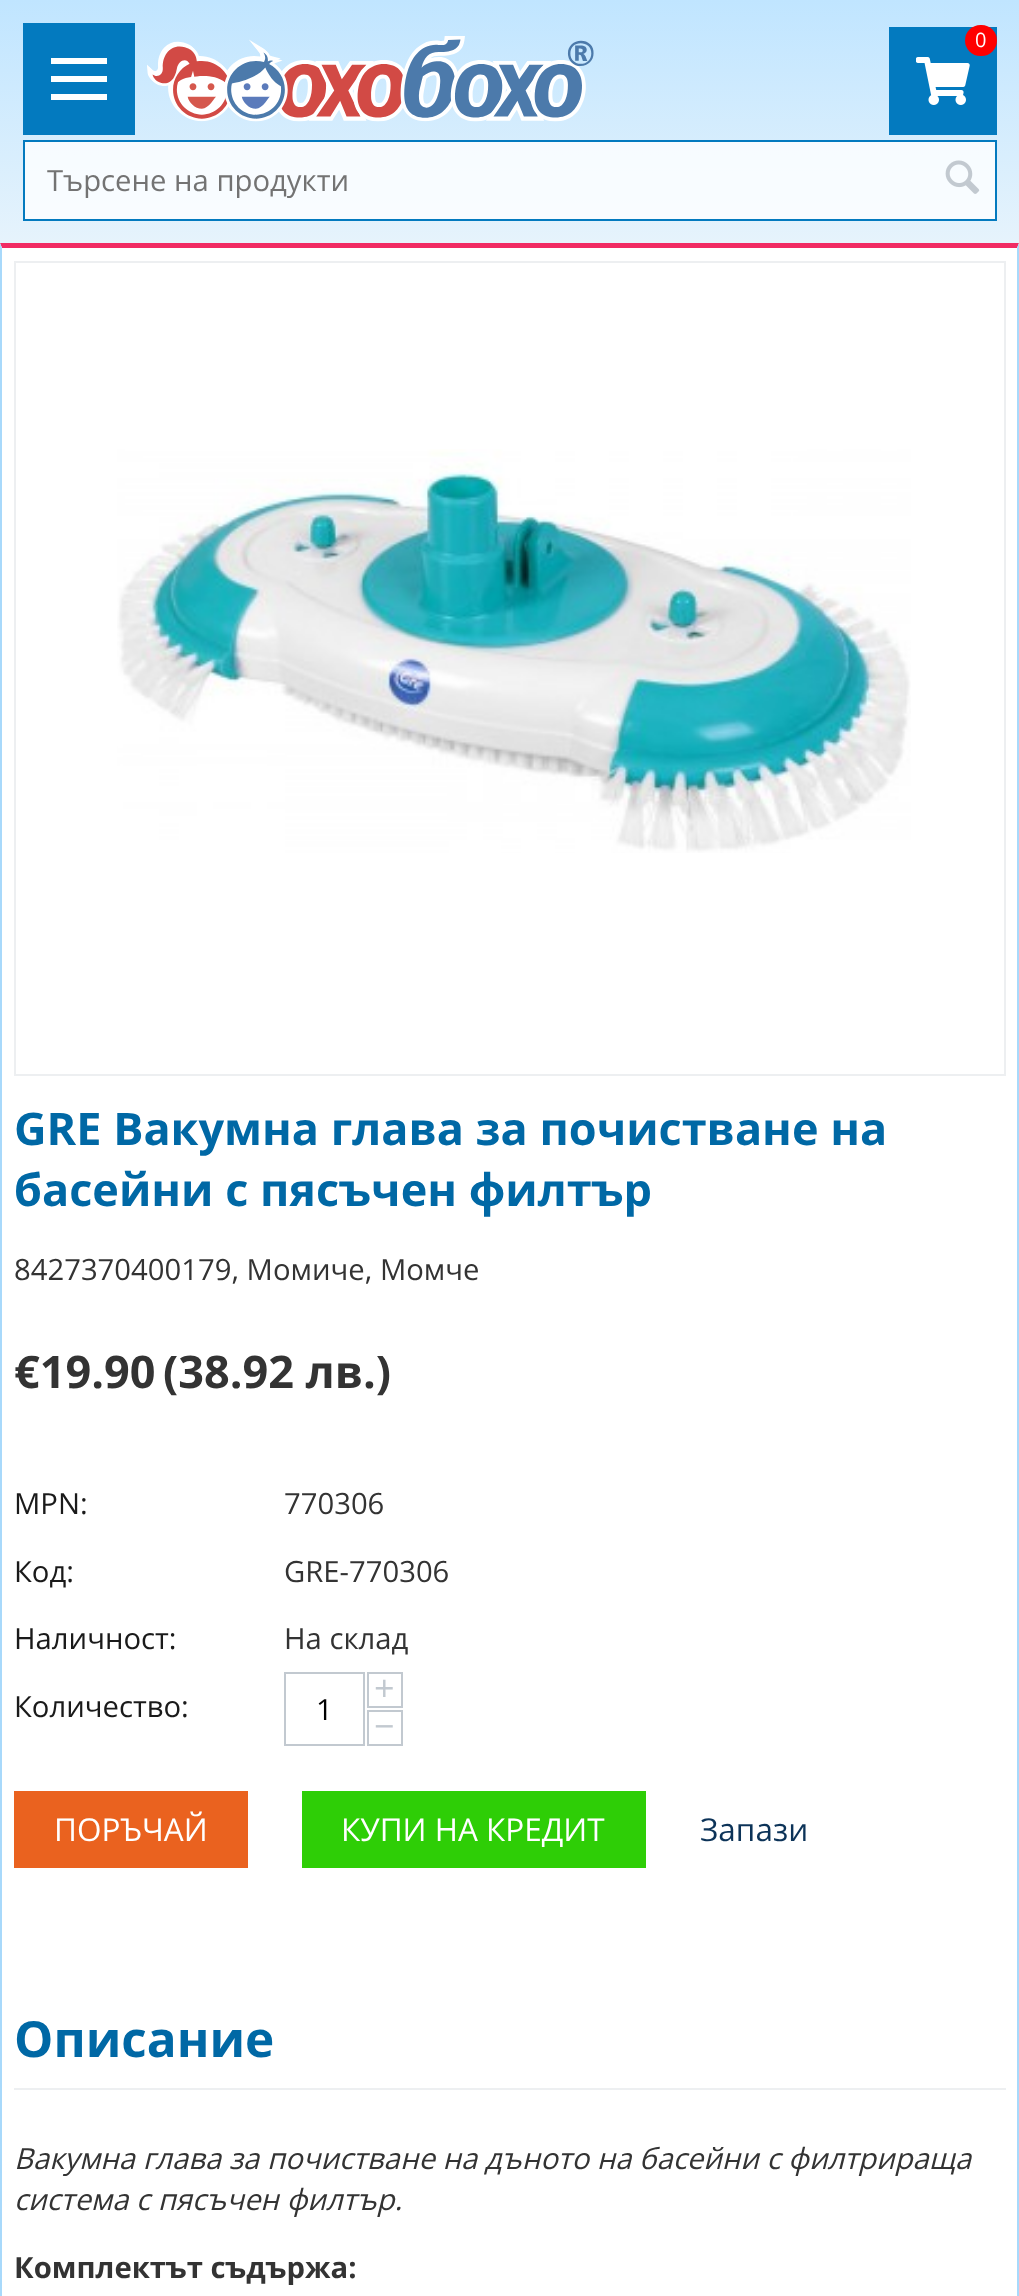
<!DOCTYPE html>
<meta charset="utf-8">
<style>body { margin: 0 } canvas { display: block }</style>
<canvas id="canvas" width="1019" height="2296"></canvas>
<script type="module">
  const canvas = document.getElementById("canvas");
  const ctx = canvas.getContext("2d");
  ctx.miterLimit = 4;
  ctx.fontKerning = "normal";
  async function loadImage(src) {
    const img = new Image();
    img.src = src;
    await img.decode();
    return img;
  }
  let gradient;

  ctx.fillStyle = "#ffffff";
  ctx.fillRect(0, 0, 1019, 2296);
  gradient = ctx.createLinearGradient(510, 0, 510, 243);
  gradient.addColorStop(0, "#c0e5ff");
  gradient.addColorStop(1, "#e6f3fc");
  ctx.fillStyle = gradient;
  ctx.fillRect(0, 0, 1019, 243);
  ctx.fillStyle = "#037abf";
  ctx.fillRect(23, 23, 112, 112);
  ctx.fillStyle = "#ffffff";
  ctx.beginPath();
  ctx.moveTo(51, 58);
  ctx.lineTo(107, 58);
  ctx.lineTo(107, 64);
  ctx.lineTo(51, 64);
  ctx.closePath();
  ctx.moveTo(51, 76);
  ctx.lineTo(107, 76);
  ctx.lineTo(107, 82);
  ctx.lineTo(51, 82);
  ctx.closePath();
  ctx.moveTo(51, 94);
  ctx.lineTo(107, 94);
  ctx.lineTo(107, 100);
  ctx.lineTo(51, 100);
  ctx.closePath();
  ctx.fill();
  ctx.drawImage(await loadImage("img1.png"), 147, 36, 447, 86);
  ctx.fillStyle = "#037abf";
  ctx.fillRect(889, 27, 108, 108);
  ctx.fillStyle = "#ff0000";
  ctx.beginPath();
  ctx.roundRect(965, 25, 32, 31, 15.5);
  ctx.fill();
  ctx.font = "20px Open Sans";
  ctx.fillStyle = "#ffffff";
  ctx.fillText("0", 975, 47);
  ctx.drawImage(await loadImage("img2.png"), 916, 57, 54, 48);
  ctx.fillStyle = "rgba(255, 255, 255, 0.79)";
  ctx.beginPath();
  ctx.rect(24, 141, 972, 79);
  ctx.fill();
  ctx.strokeStyle = "#037abf";
  ctx.lineWidth = 2;
  ctx.stroke();
  ctx.font = "29.25px Open Sans";
  ctx.fillStyle = "#737373";
  ctx.fillText("Търсене на продукти", 47, 191);
  ctx.drawImage(await loadImage("img3.png"), 945, 160, 35, 34);
  ctx.fillStyle = "#f12b63";
  ctx.beginPath();
  ctx.moveTo(0, 243);
  ctx.lineTo(1019, 243);
  ctx.lineTo(1017, 248);
  ctx.lineTo(2, 248);
  ctx.closePath();
  ctx.fill();
  ctx.fillStyle = "#a8d9fb";
  ctx.beginPath();
  ctx.moveTo(1019, 243);
  ctx.lineTo(1019, 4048);
  ctx.lineTo(1017, 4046);
  ctx.lineTo(1017, 248);
  ctx.closePath();
  ctx.fill();
  ctx.beginPath();
  ctx.moveTo(0, 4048);
  ctx.lineTo(0, 243);
  ctx.lineTo(2, 248);
  ctx.lineTo(2, 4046);
  ctx.closePath();
  ctx.fill();
  ctx.strokeStyle = "#edeff1";
  ctx.strokeRect(15, 262, 990, 813);
  ctx.drawImage(await loadImage("img4.png"), 117, 449, 794, 404);
  ctx.font = "bold 45px Open Sans";
  ctx.fillStyle = "#0068a5";
  ctx.fillText("GRE Вакумна глава за почистване на", 14, 1145);
  ctx.fillText("басейни с пясъчен филтър", 14, 1206);
  ctx.font = "29.25px Open Sans";
  ctx.fillStyle = "#333333";
  ctx.fillText("8427370400179, Момиче, Момче", 14, 1280);
  ctx.font = "bold 45px Open Sans";
  ctx.fillText("€19.90", 14, 1388);
  ctx.fillText("(38.92 лв.)", 163, 1388);
  ctx.font = "29.25px Open Sans";
  ctx.fillStyle = "#1a1a1a";
  ctx.fillText("MPN:", 14, 1514);
  ctx.fillStyle = "#333333";
  ctx.fillText("770306", 284, 1514);
  ctx.fillStyle = "#1a1a1a";
  ctx.fillText("Код:", 14, 1582);
  ctx.fillStyle = "#333333";
  ctx.fillText("GRE-770306", 284, 1582);
  ctx.fillStyle = "#1a1a1a";
  ctx.fillText("Наличност:", 14, 1649);
  ctx.fillStyle = "#333333";
  ctx.fillText("На склад", 284, 1649);
  ctx.fillStyle = "#1a1a1a";
  ctx.fillText("Количество:", 14, 1717);
  ctx.strokeStyle = "#c2c9d0";
  ctx.strokeRect(368, 1673, 34, 34);
  ctx.font = "36px Open Sans";
  ctx.fillStyle = "#c2c9d0";
  ctx.fillText("+", 374, 1701);
  ctx.strokeRect(285, 1673, 79, 72);
  ctx.font = "29.25px Open Sans";
  ctx.fillStyle = "#000000";
  ctx.fillText("1", 316, 1720);
  ctx.strokeRect(368, 1711, 34, 34);
  ctx.font = "36px Open Sans";
  ctx.fillStyle = "#c2c9d0";
  ctx.fillText("−", 374, 1739);
  ctx.fillStyle = "#ea621f";
  ctx.fillRect(14, 1791, 234, 77);
  ctx.font = "31.5px Open Sans";
  ctx.fillStyle = "#ffffff";
  ctx.fillText("ПОРЪЧАЙ", 54, 1841);
  ctx.fillStyle = "#2ece06";
  ctx.fillRect(302, 1791, 344, 77);
  ctx.fillStyle = "#ffffff";
  ctx.fillText("КУПИ НА КРЕДИТ", 341, 1841);
  ctx.fillStyle = "#0c3358";
  ctx.fillText("Запази", 700, 1841);
  ctx.fillStyle = "#edeff1";
  ctx.fillRect(14, 2088, 992, 2);
  ctx.font = "bold 49.5px Open Sans";
  ctx.fillStyle = "#0068a5";
  ctx.fillText("Описание", 14, 2057);
  ctx.font = "italic 29.25px Open Sans";
  ctx.fillStyle = "#333333";
  ctx.fillText("Вакумна глава за почистване на дъното на басейни с филтрираща", 14, 2169);
  ctx.fillText("система с пясъчен филтър.", 14, 2210);
  ctx.font = "bold 29.25px Open Sans";
  ctx.fillText("Комплектът съдържа:", 14, 2278);
</script>
